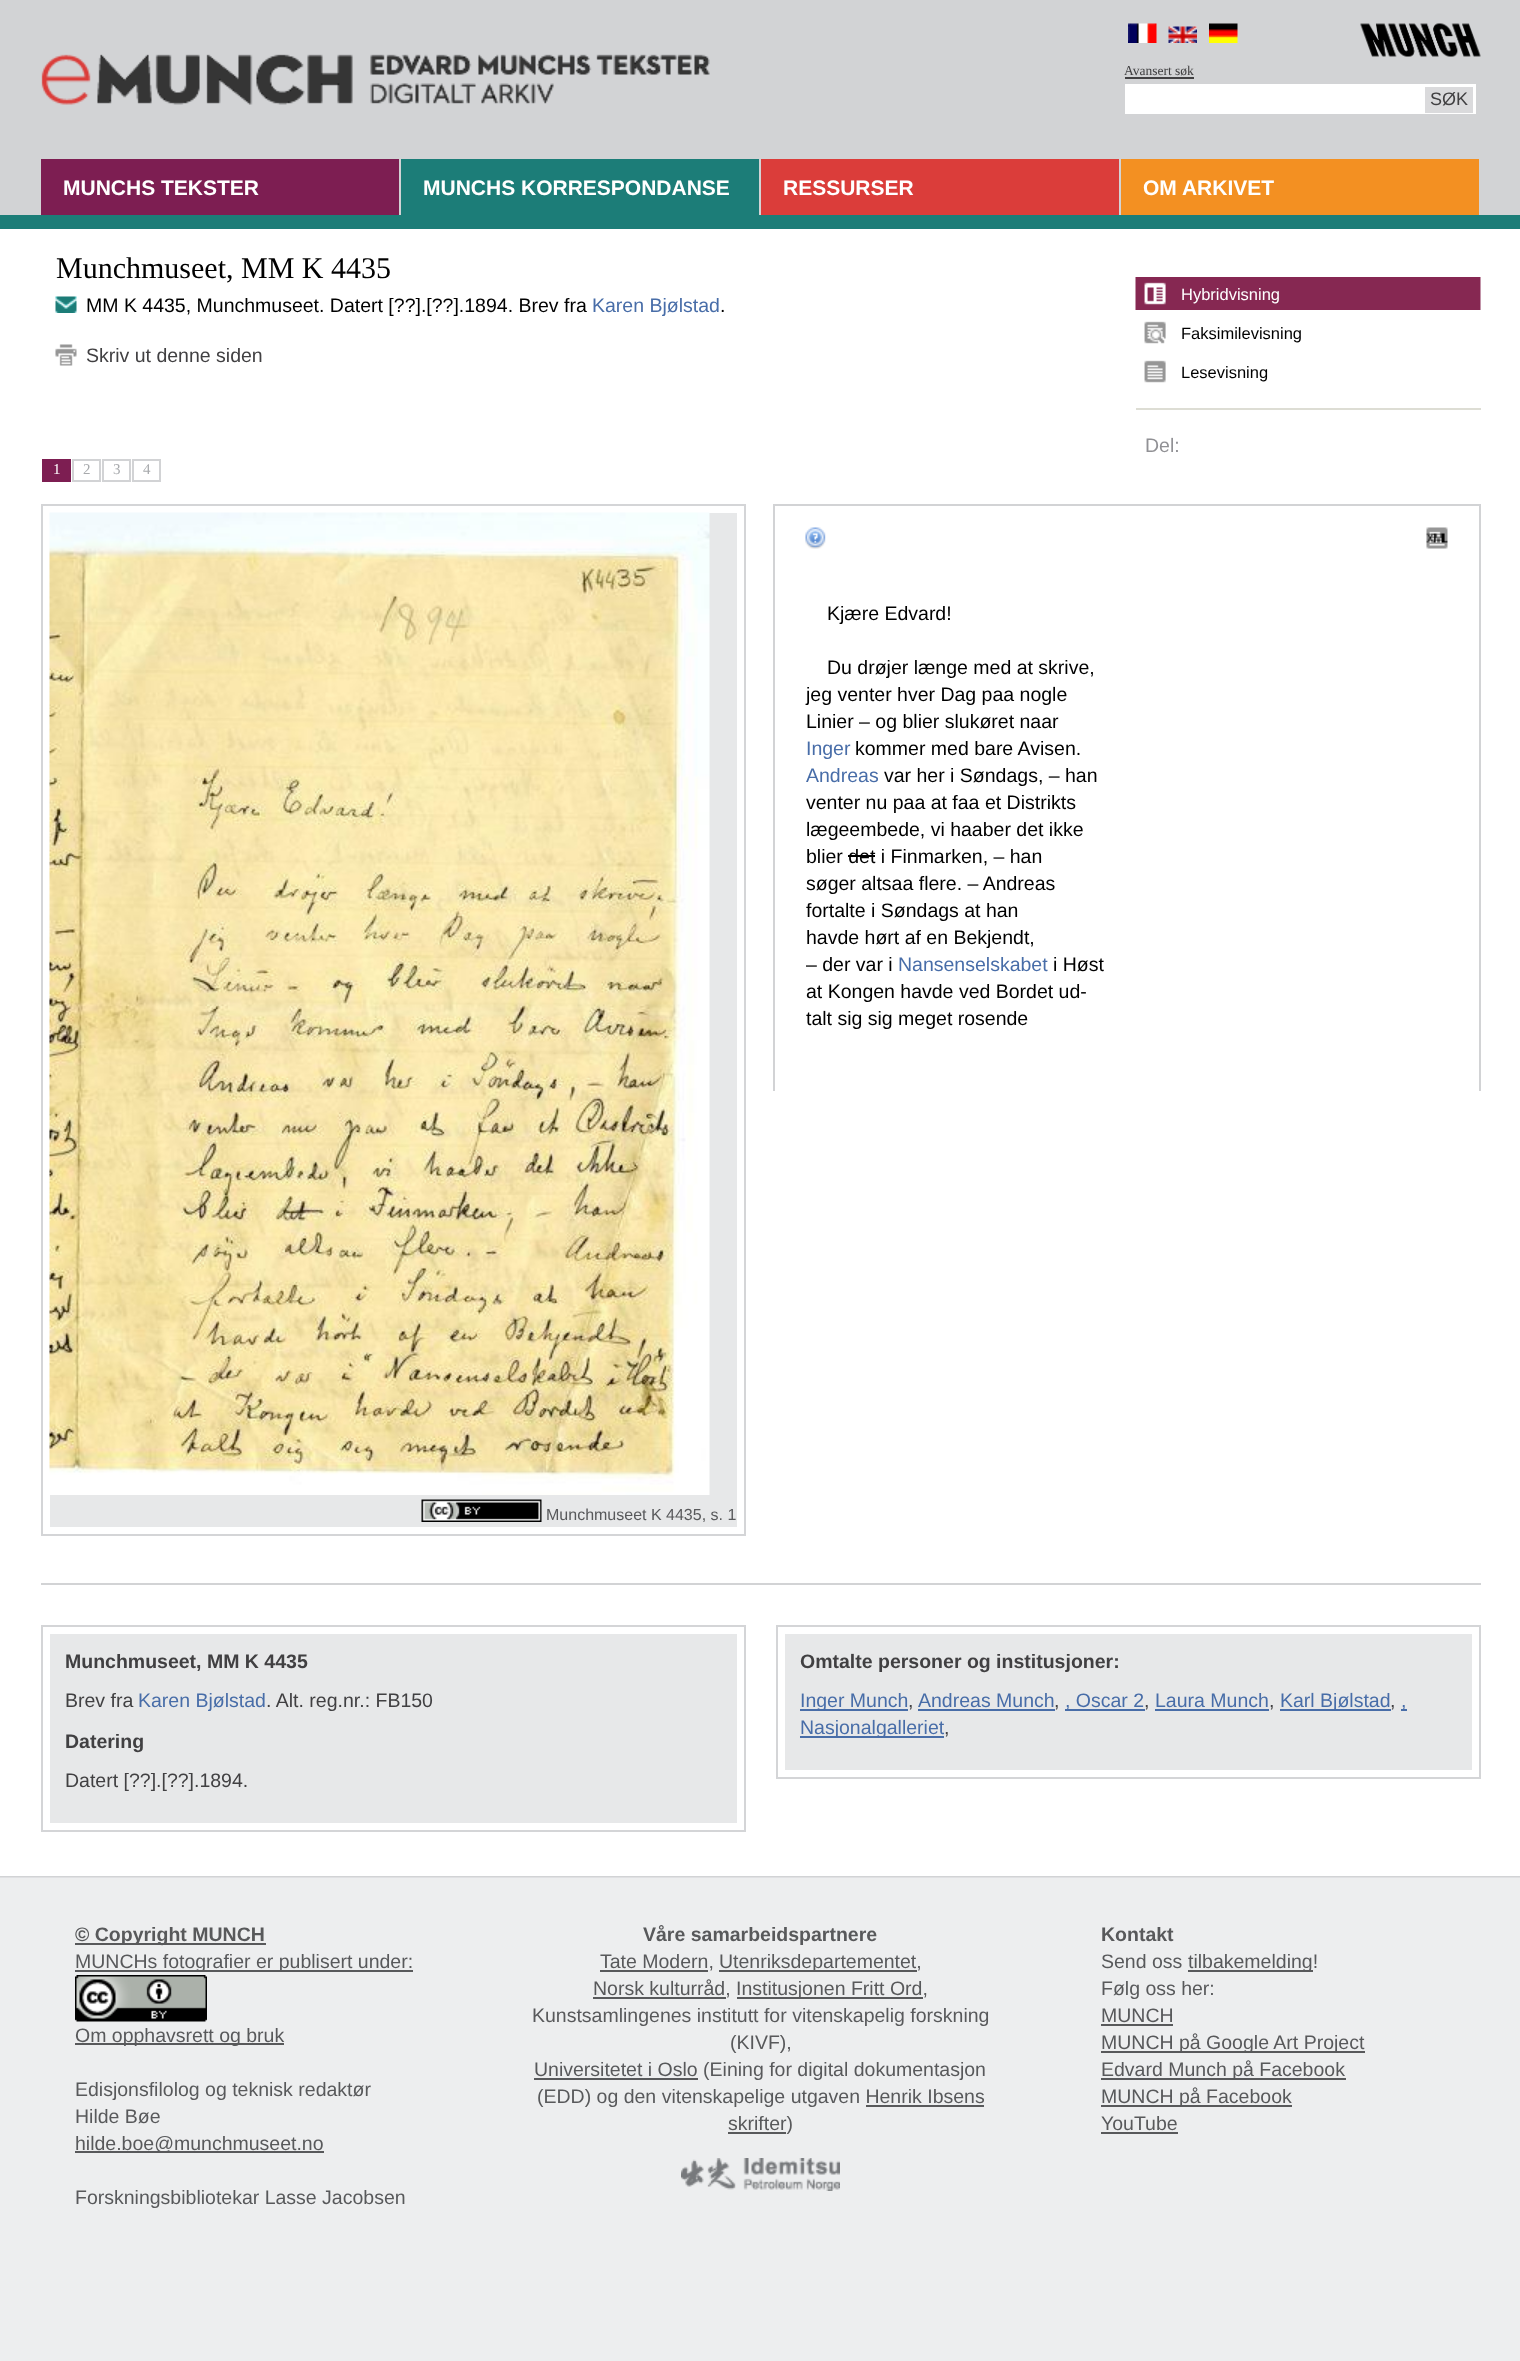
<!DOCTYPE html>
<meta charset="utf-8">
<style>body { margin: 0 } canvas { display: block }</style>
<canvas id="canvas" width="1520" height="2361"></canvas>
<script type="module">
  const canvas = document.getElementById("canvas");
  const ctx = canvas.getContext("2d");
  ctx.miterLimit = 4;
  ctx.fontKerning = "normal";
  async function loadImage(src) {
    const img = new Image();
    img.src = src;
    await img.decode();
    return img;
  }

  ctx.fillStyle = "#ffffff";
  ctx.fillRect(0, 0, 1520, 2361);
  ctx.fillStyle = "#d2d3d5";
  ctx.fillRect(0, 0, 1520, 215);
  ctx.drawImage(await loadImage("img1.png"), 41, 54, 669, 51);
  ctx.drawImage(await loadImage("img2.png"), 1128, 23, 29, 20);
  ctx.drawImage(await loadImage("img3.png"), 1168, 26, 29, 17);
  ctx.drawImage(await loadImage("img4.png"), 1209, 23, 29, 20);
  ctx.drawImage(await loadImage("img5.png"), 1360, 23, 121, 34);
  ctx.font = "13.5px Liberation Serif";
  ctx.fillStyle = "#414042";
  ctx.fillText("Avansert søk", 1124, 75);
  ctx.fillRect(1125, 77, 69, 2);
  ctx.fillStyle = "#ffffff";
  ctx.fillRect(1125, 84, 351, 30);
  ctx.fillStyle = "#dadadc";
  ctx.fillRect(1425, 87, 48, 26);
  ctx.font = "18px Liberation Sans";
  ctx.fillStyle = "#414042";
  ctx.fillText("SØK", 1430, 105);
  ctx.fillStyle = "#1c7d78";
  ctx.fillRect(0, 215, 1520, 14);
  ctx.fillStyle = "#7d1e52";
  ctx.fillRect(41, 159, 358, 56);
  ctx.font = "bold 21px Liberation Sans";
  ctx.fillStyle = "#ffffff";
  ctx.fillText("MUNCHS TEKSTER", 63, 195);
  ctx.fillStyle = "#1c7d78";
  ctx.fillRect(401, 159, 358, 56);
  ctx.fillStyle = "#ffffff";
  ctx.fillText("MUNCHS KORRESPONDANSE", 423, 195);
  ctx.fillStyle = "#db3d3a";
  ctx.fillRect(761, 159, 358, 56);
  ctx.fillStyle = "#ffffff";
  ctx.fillText("RESSURSER", 783, 195);
  ctx.fillStyle = "#f39022";
  ctx.fillRect(1121, 159, 358, 56);
  ctx.fillStyle = "#ffffff";
  ctx.fillText("OM ARKIVET", 1143, 195);
  ctx.font = "30px Liberation Serif";
  ctx.fillStyle = "#000000";
  ctx.fillText("Munchmuseet, MM K 4435", 56, 278);
  ctx.drawImage(await loadImage("img6.png"), 55, 296, 22, 17);
  ctx.font = "19.5px Liberation Sans";
  ctx.fillText("MM K 4435, Munchmuseet. Datert [??].[??].1894. Brev fra", 86, 312);
  ctx.fillStyle = "#486da8";
  ctx.fillText("Karen Bjølstad", 592, 312);
  ctx.fillStyle = "#000000";
  ctx.fillText(".", 720, 312);
  ctx.drawImage(await loadImage("img7.png"), 55, 344, 22, 22);
  ctx.fillStyle = "#414042";
  ctx.fillText("Skriv ut denne siden", 86, 362);
  ctx.drawImage(await loadImage("img8.png"), 1135, 277, 346, 33);
  ctx.font = "16.5px Liberation Sans";
  ctx.fillStyle = "#ffffff";
  ctx.fillText("Hybridvisning", 1181, 300);
  ctx.drawImage(await loadImage("img9.png"), 1144, 321, 22, 23);
  ctx.fillStyle = "#000000";
  ctx.fillText("Faksimilevisning", 1181, 339);
  ctx.drawImage(await loadImage("img10.png"), 1144, 360, 22, 23);
  ctx.fillText("Lesevisning", 1181, 378);
  ctx.fillStyle = "#ddddd4";
  ctx.fillRect(1136, 408, 345, 2);
  ctx.font = "19.5px Liberation Sans";
  ctx.fillStyle = "#919195";
  ctx.fillText("Del:", 1145, 452);
  ctx.fillStyle = "#7d1e52";
  ctx.fillRect(42, 459, 29, 23);
  ctx.font = "15px Liberation Serif";
  ctx.fillStyle = "#ffffff";
  ctx.fillText("1", 53, 474);
  ctx.strokeStyle = "#d2d3d5";
  ctx.lineWidth = 2;
  ctx.strokeRect(73, 460, 27, 21);
  ctx.fillStyle = "#a7a9ac";
  ctx.fillText("2", 83, 474);
  ctx.strokeRect(103, 460, 27, 21);
  ctx.fillText("3", 113, 474);
  ctx.strokeRect(133, 460, 27, 21);
  ctx.fillText("4", 143, 474);
  ctx.fillStyle = "#d2d3d5";
  ctx.fillRect(773, 504, 708, 2);
  ctx.fillRect(1479, 504, 2, 587);
  ctx.fillRect(773, 504, 2, 587);
  ctx.drawImage(await loadImage("img11.png"), 805, 527, 21, 22);
  ctx.drawImage(await loadImage("img12.png"), 1426, 527, 22, 22);
  ctx.font = "19.5px Liberation Sans";
  ctx.fillStyle = "#000000";
  ctx.fillText("Kjære Edvard!", 827, 620);
  ctx.fillText("Du drøjer længe med at skrive,", 827, 674);
  ctx.fillText("jeg venter hver Dag paa nogle", 806, 701);
  ctx.fillText("Linier – og blier slukøret naar", 806, 728);
  ctx.fillStyle = "#486da8";
  ctx.fillText("Inger", 806, 755);
  ctx.fillStyle = "#000000";
  ctx.fillText("kommer med bare Avisen.", 855, 755);
  ctx.fillStyle = "#486da8";
  ctx.fillText("Andreas", 806, 782);
  ctx.fillStyle = "#000000";
  ctx.fillText("var her i Søndags, – han", 884, 782);
  ctx.fillText("venter nu paa at faa et Distrikts", 806, 809);
  ctx.fillText("lægeembede, vi haaber det ikke", 806, 836);
  ctx.fillText("blier det i Finmarken, – han", 806, 863);
  ctx.fillRect(848, 855, 27, 2);
  ctx.fillText("søger altsaa flere. – Andreas", 806, 890);
  ctx.fillText("fortalte i Søndags at han", 806, 917);
  ctx.fillText("havde hørt af en Bekjendt,", 806, 944);
  ctx.fillText("– der var i", 806, 971);
  ctx.fillStyle = "#486da8";
  ctx.fillText("Nansenselskabet", 898, 971);
  ctx.fillStyle = "#000000";
  ctx.fillText("i Høst", 1053, 971);
  ctx.fillText("at Kongen havde ved Bordet ud-", 806, 998);
  ctx.fillText("talt sig sig meget rosende", 806, 1025);
  ctx.strokeStyle = "#d4d5d7";
  ctx.strokeRect(42, 505, 703, 1030);
  ctx.fillStyle = "#e7e8e9";
  ctx.fillRect(50, 513, 687, 1014);
  ctx.drawImage(await loadImage("img13.png"), 49, 512, 661, 983);
  ctx.drawImage(await loadImage("img14.png"), 421, 1499, 121, 23);
  ctx.font = "16px Liberation Sans";
  ctx.fillStyle = "#58595b";
  ctx.fillText("Munchmuseet K 4435, s. 1", 546, 1520);
  ctx.fillStyle = "#d2d3d5";
  ctx.fillRect(41, 1583, 1440, 2);
  ctx.strokeRect(42, 1626, 703, 205);
  ctx.fillStyle = "#e7e8e9";
  ctx.fillRect(50, 1634, 687, 189);
  ctx.font = "bold 19.5px Liberation Sans";
  ctx.fillStyle = "#414042";
  ctx.fillText("Munchmuseet, MM K 4435", 65, 1668);
  ctx.font = "19.5px Liberation Sans";
  ctx.fillText("Brev fra", 65, 1707);
  ctx.fillStyle = "#486da8";
  ctx.fillText("Karen Bjølstad", 138, 1707);
  ctx.fillStyle = "#414042";
  ctx.fillText(". Alt. reg.nr.: FB150", 266, 1707);
  ctx.font = "bold 19.5px Liberation Sans";
  ctx.fillText("Datering", 65, 1748);
  ctx.font = "19.5px Liberation Sans";
  ctx.fillText("Datert [??].[??].1894.", 65, 1787);
  ctx.strokeRect(777, 1626, 703, 152);
  ctx.fillStyle = "#e7e8e9";
  ctx.fillRect(785, 1634, 687, 136);
  ctx.font = "bold 19.5px Liberation Sans";
  ctx.fillStyle = "#414042";
  ctx.fillText("Omtalte personer og institusjoner:", 800, 1668);
  ctx.fillStyle = "#486da8";
  ctx.fillRect(800, 1709, 108, 2);
  ctx.font = "19.5px Liberation Sans";
  ctx.fillText("Inger Munch", 800, 1707);
  ctx.fillStyle = "#414042";
  ctx.fillText(",", 908, 1707);
  ctx.fillStyle = "#486da8";
  ctx.fillText("Andreas Munch", 918, 1707);
  ctx.fillRect(918, 1709, 137, 2);
  ctx.fillStyle = "#414042";
  ctx.fillText(",", 1054, 1707);
  ctx.fillStyle = "#486da8";
  ctx.fillRect(1065, 1709, 80, 2);
  ctx.fillText(", Oscar 2", 1065, 1707);
  ctx.fillStyle = "#414042";
  ctx.fillText(",", 1144, 1707);
  ctx.fillStyle = "#486da8";
  ctx.fillText("Laura Munch", 1155, 1707);
  ctx.fillRect(1155, 1709, 114, 2);
  ctx.fillStyle = "#414042";
  ctx.fillText(",", 1269, 1707);
  ctx.fillStyle = "#486da8";
  ctx.fillRect(1280, 1709, 111, 2);
  ctx.fillText("Karl Bjølstad", 1280, 1707);
  ctx.fillStyle = "#414042";
  ctx.fillText(",", 1390, 1707);
  ctx.fillStyle = "#486da8";
  ctx.fillRect(1401, 1709, 6, 2);
  ctx.fillText(",", 1401, 1707);
  ctx.fillRect(800, 1736, 144, 2);
  ctx.fillText("Nasjonalgalleriet", 800, 1734);
  ctx.fillStyle = "#414042";
  ctx.fillText(",", 944, 1734);
  ctx.drawImage(await loadImage("img15.png"), 0, 1876, 1520, 485);
  ctx.fillStyle = "#58595b";
  ctx.fillRect(75, 1943, 191, 2);
  ctx.font = "bold 19.5px Liberation Sans";
  ctx.fillText("© Copyright MUNCH", 75, 1941);
  ctx.fillRect(75, 1970, 338, 2);
  ctx.font = "19.5px Liberation Sans";
  ctx.fillText("MUNCHs fotografier er publisert under:", 75, 1968);
  ctx.drawImage(await loadImage("img16.png"), 75, 1975, 132, 47);
  ctx.fillRect(75, 2043, 209, 2);
  ctx.fillText("Om opphavsrett og bruk", 75, 2042);
  ctx.fillText("Edisjonsfilolog og teknisk redaktør", 75, 2096);
  ctx.fillText("Hilde Bøe", 75, 2123);
  ctx.fillRect(75, 2151, 249, 2);
  ctx.fillText("hilde.boe@munchmuseet.no", 75, 2150);
  ctx.fillText("Forskningsbibliotekar Lasse Jacobsen", 75, 2204);
  ctx.font = "bold 19.5px Liberation Sans";
  ctx.fillText("Våre samarbeidspartnere", 643, 1941);
  ctx.fillRect(600, 1970, 108, 2);
  ctx.font = "19.5px Liberation Sans";
  ctx.fillText("Tate Modern,", 600, 1968);
  ctx.fillRect(719, 1970, 198, 2);
  ctx.fillText("Utenriksdepartementet,", 719, 1968);
  ctx.fillRect(593, 1997, 133, 2);
  ctx.fillText("Norsk kulturråd,", 593, 1995);
  ctx.fillRect(737, 1997, 186, 2);
  ctx.fillText("Institusjonen Fritt Ord,", 736, 1995);
  ctx.fillText("Kunstsamlingenes institutt for vitenskapelig forskning", 532, 2022);
  ctx.fillText("(KIVF),", 730, 2049);
  ctx.fillRect(534, 2078, 164, 2);
  ctx.fillText("Universitetet i Oslo (Eining for digital dokumentasjon", 534, 2076);
  ctx.fillText("(EDD) og den vitenskapelige utgaven Henrik Ibsens", 537, 2103);
  ctx.fillRect(728, 2132, 58, 2);
  ctx.fillText("skrifter)", 728, 2130);
  ctx.fillRect(866, 2105, 118, 2);
  ctx.drawImage(await loadImage("img17.png"), 681, 2158, 159, 33);
  ctx.font = "bold 19.5px Liberation Sans";
  ctx.fillText("Kontakt", 1101, 1941);
  ctx.font = "19.5px Liberation Sans";
  ctx.fillText("Send oss", 1101, 1968);
  ctx.fillRect(1188, 1970, 125, 2);
  ctx.fillText("tilbakemelding!", 1188, 1968);
  ctx.fillText("Følg oss her:", 1101, 1995);
  ctx.fillText("MUNCH", 1101, 2022);
  ctx.fillRect(1101, 2024, 72, 2);
  ctx.fillRect(1101, 2051, 264, 2);
  ctx.fillText("MUNCH på Google Art Project", 1101, 2049);
  ctx.fillRect(1101, 2078, 245, 2);
  ctx.fillText("Edvard Munch på Facebook", 1101, 2076);
  ctx.fillRect(1101, 2105, 191, 2);
  ctx.fillText("MUNCH på Facebook", 1101, 2103);
  ctx.fillText("YouTube", 1101, 2130);
  ctx.fillRect(1101, 2132, 77, 2);
</script>
